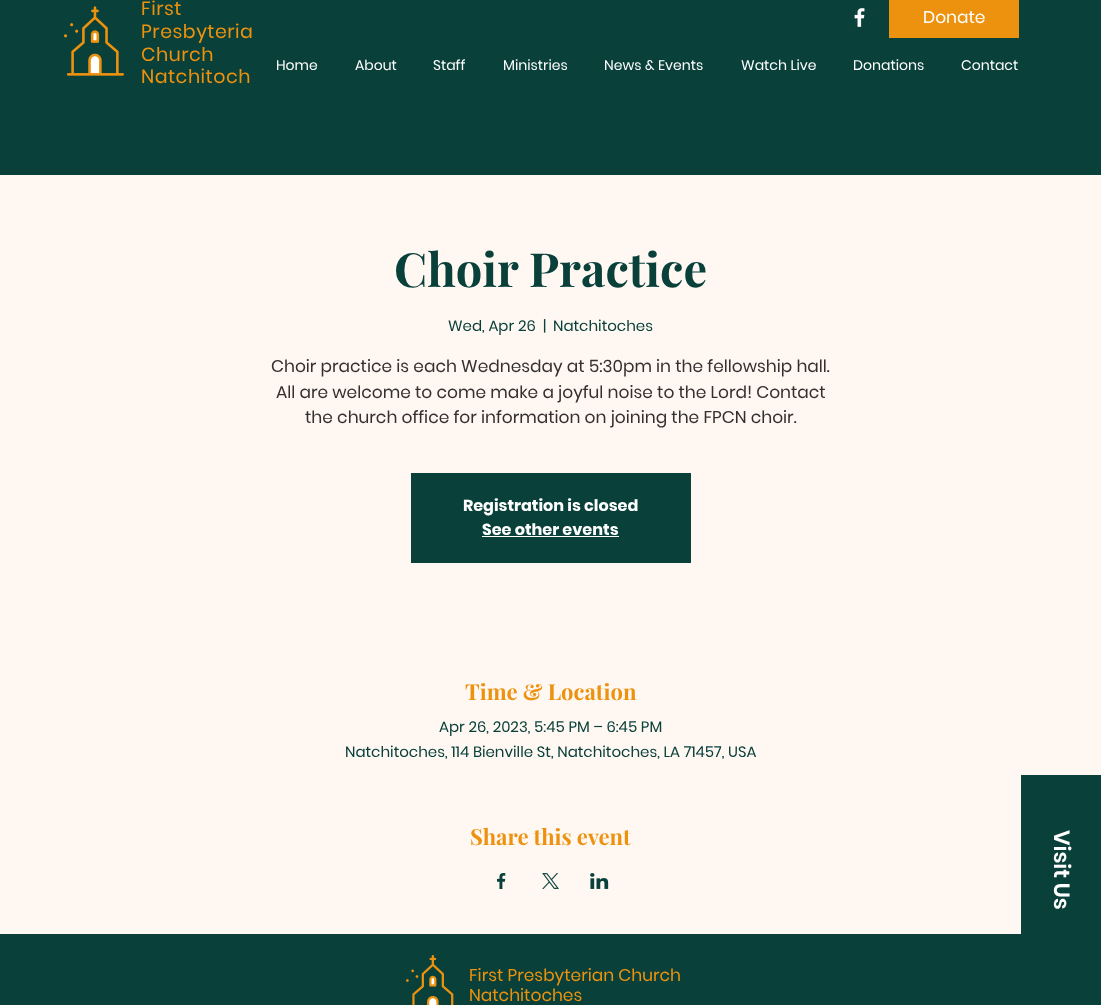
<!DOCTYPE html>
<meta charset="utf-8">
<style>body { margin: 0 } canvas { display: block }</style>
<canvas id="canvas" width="1101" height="1005"></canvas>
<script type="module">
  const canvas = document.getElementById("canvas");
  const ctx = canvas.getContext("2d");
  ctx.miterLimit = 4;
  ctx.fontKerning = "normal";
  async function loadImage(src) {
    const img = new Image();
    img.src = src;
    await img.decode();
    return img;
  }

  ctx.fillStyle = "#09403a";
  ctx.fillRect(0, 0, 1101, 1005);
  ctx.drawImage(await loadImage("img1.png"), 64, 6, 60, 70);
  ctx.letterSpacing = "0.5px";
  ctx.font = "19px Poppins";
  ctx.fillStyle = "#ed920e";
  ctx.fillText("First", 141, 15);
  ctx.fillText("Presbyteria", 141, 38);
  ctx.fillText("Church", 141, 61);
  ctx.fillText("Natchitoch", 141, 83);
  ctx.drawImage(await loadImage("img2.png"), 854, 8, 11, 19);
  ctx.fillRect(889, 0, 130, 38);
  ctx.letterSpacing = "0px";
  ctx.font = "17px Poppins";
  ctx.fillStyle = "#ffffff";
  ctx.fillText("Donate", 923, 23);
  ctx.font = "14px Poppins";
  ctx.fillText("Home", 276, 70);
  ctx.fillText("About", 355, 70);
  ctx.fillText("Staff", 433, 70);
  ctx.fillText("Ministries", 503, 70);
  ctx.fillText("News & Events", 604, 70);
  ctx.fillText("Watch Live", 741, 70);
  ctx.fillText("Donations", 853, 70);
  ctx.fillText("Contact", 961, 70);
  ctx.fillStyle = "#fff7f2";
  ctx.fillRect(0, 175, 1101, 759);
  ctx.font = "bold 47px Playfair Display";
  ctx.fillStyle = "#09403a";
  ctx.fillText("Choir Practice", 394, 287);
  ctx.font = "15px Poppins";
  ctx.fillText("Wed, Apr 26", 448, 331);
  ctx.fillText("|", 543, 331);
  ctx.fillText("Natchitoches", 553, 331);
  ctx.font = "17px Poppins";
  ctx.fillStyle = "#333130";
  ctx.fillText("Choir practice is each Wednesday at 5:30pm in the fellowship hall.", 271, 372);
  ctx.fillText("All are welcome to come make a joyful noise to the Lord! Contact", 276, 398);
  ctx.fillText("the church office for information on joining the FPCN choir.", 305, 423);
  ctx.fillStyle = "#09403a";
  ctx.fillRect(411, 473, 280, 90);
  ctx.font = "bold 16px Poppins";
  ctx.fillStyle = "#ffffff";
  ctx.fillText("Registration is closed", 463, 511);
  ctx.fillText("See other events", 482, 535);
  ctx.fillRect(482, 536, 137, 1);
  ctx.font = "bold 22px Playfair Display";
  ctx.fillStyle = "#ed920e";
  ctx.fillText("Time & Location", 465, 700);
  ctx.font = "15px Poppins";
  ctx.fillStyle = "#09403a";
  ctx.fillText("Apr 26, 2023, 5:45 PM – 6:45 PM", 439, 732);
  ctx.fillText("Natchitoches, 114 Bienville St, Natchitoches, LA 71457, USA", 345, 757);
  ctx.font = "bold 22px Playfair Display";
  ctx.fillStyle = "#ed920e";
  ctx.fillText("Share this event", 470, 845);
  ctx.drawImage(await loadImage("img3.png"), 497, 873, 9, 16);
  ctx.drawImage(await loadImage("img4.png"), 542, 873, 17, 16);
  ctx.drawImage(await loadImage("img5.png"), 590, 873, 19, 16);
  ctx.fillStyle = "#09403a";
  ctx.fillRect(1021, 775, 80, 159);
  ctx.font = "600 22px Poppins";
  ctx.fillStyle = "#ffffff";
  ctx.save();
  ctx.translate(1054, 830);
  ctx.rotate(90 * Math.PI / 180);
  ctx.fillText("Visit Us", 0, 0);
  ctx.restore();
  ctx.drawImage(await loadImage("img6.png"), 406, 955, 48, 50);
  ctx.font = "17px Poppins";
  ctx.fillStyle = "#ed920e";
  ctx.fillText("First Presbyterian Church", 469, 981);
  ctx.fillText("Natchitoches", 469, 1001);
</script>
